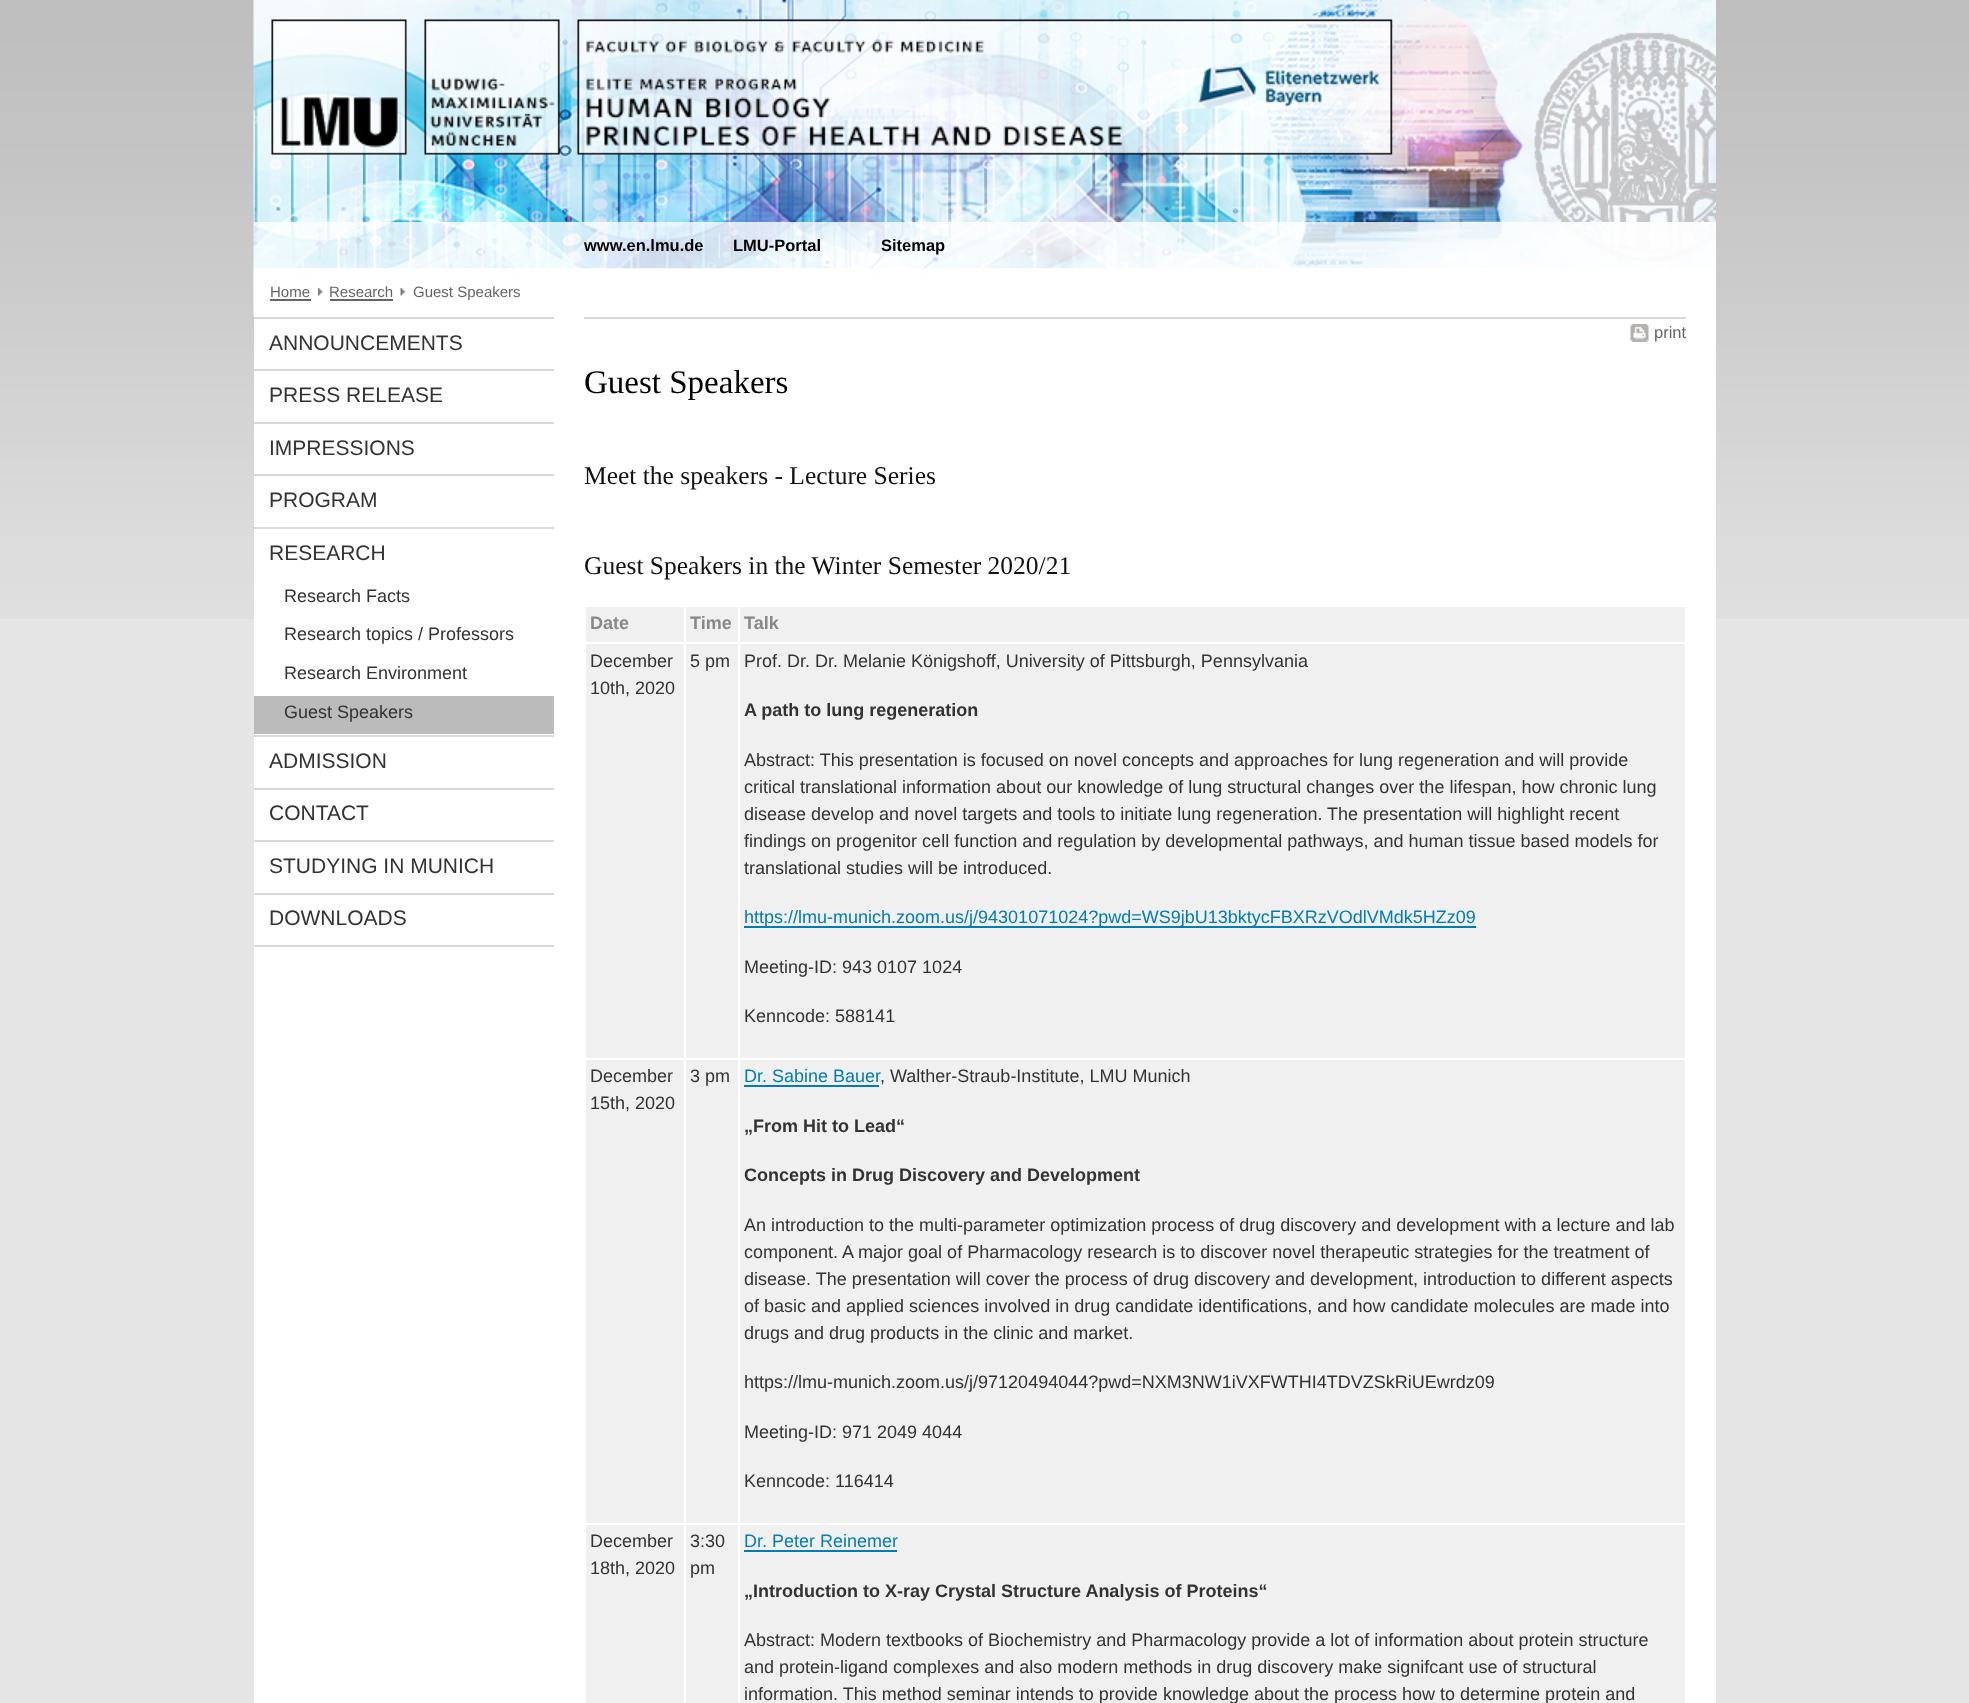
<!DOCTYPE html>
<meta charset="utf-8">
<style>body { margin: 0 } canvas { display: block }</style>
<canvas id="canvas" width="1969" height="1703"></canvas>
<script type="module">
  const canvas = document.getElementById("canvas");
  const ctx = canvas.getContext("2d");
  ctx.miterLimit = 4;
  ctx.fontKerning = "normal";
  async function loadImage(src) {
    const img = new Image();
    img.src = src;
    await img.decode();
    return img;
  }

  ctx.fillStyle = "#e5e5e5";
  ctx.fillRect(0, 0, 1969, 1703);
  ctx.drawImage(await loadImage("img1.png"), 0, 0, 1969, 619);
  ctx.fillStyle = "#ffffff";
  ctx.fillRect(254, 268, 1462, 1435);
  ctx.drawImage(await loadImage("img2.png"), 253, 0, 1463, 222);
  ctx.drawImage(await loadImage("img3.png"), 253, 222, 1463, 47);
  ctx.font = "bold 16.5px Liberation Sans";
  ctx.fillStyle = "#000000";
  ctx.fillText("www.en.lmu.de", 584, 251);
  ctx.drawImage(await loadImage("img4.png"), 718, 232, 2, 27);
  ctx.fillText("LMU-Portal", 733, 251);
  ctx.drawImage(await loadImage("img5.png"), 835, 232, 2, 20);
  ctx.drawImage(await loadImage("img6.png"), 865, 232, 2, 21);
  ctx.fillText("Sitemap", 881, 251);
  ctx.drawImage(await loadImage("img7.png"), 253, 268, 1463, 47);
  ctx.font = "15px Liberation Sans";
  ctx.fillStyle = "#666666";
  ctx.fillText("Home", 270, 297);
  ctx.fillRect(270, 299, 41, 2);
  ctx.drawImage(await loadImage("img8.png"), 318, 288, 5, 8);
  ctx.fillText("Research", 329, 297);
  ctx.fillRect(330, 299, 63, 2);
  ctx.drawImage(await loadImage("img9.png"), 400, 288, 6, 8);
  ctx.fillText("Guest Speakers", 413, 297);
  ctx.fillStyle = "#d8d8d8";
  ctx.fillRect(254, 317, 300, 2);
  ctx.fillRect(254, 369, 300, 2);
  ctx.font = "21px Liberation Sans";
  ctx.fillStyle = "#333333";
  ctx.fillText("ANNOUNCEMENTS", 269, 350);
  ctx.fillStyle = "#d8d8d8";
  ctx.fillRect(254, 422, 300, 2);
  ctx.fillStyle = "#333333";
  ctx.fillText("PRESS RELEASE", 269, 402);
  ctx.fillStyle = "#d8d8d8";
  ctx.fillRect(254, 474, 300, 2);
  ctx.fillStyle = "#333333";
  ctx.fillText("IMPRESSIONS", 269, 455);
  ctx.fillStyle = "#d8d8d8";
  ctx.fillRect(254, 527, 300, 2);
  ctx.fillStyle = "#333333";
  ctx.fillText("PROGRAM", 269, 507);
  ctx.fillStyle = "#d8d8d8";
  ctx.fillRect(254, 735, 300, 2);
  ctx.fillStyle = "#333333";
  ctx.fillText("RESEARCH", 269, 560);
  ctx.font = "18px Liberation Sans";
  ctx.fillText("Research Facts", 284, 602);
  ctx.fillText("Research topics / Professors", 284, 640);
  ctx.fillText("Research Environment", 284, 679);
  ctx.fillStyle = "#bbbbbb";
  ctx.fillRect(254, 696, 300, 38);
  ctx.fillStyle = "#333333";
  ctx.fillText("Guest Speakers", 284, 718);
  ctx.fillStyle = "#d8d8d8";
  ctx.fillRect(254, 788, 300, 2);
  ctx.font = "21px Liberation Sans";
  ctx.fillStyle = "#333333";
  ctx.fillText("ADMISSION", 269, 768);
  ctx.fillStyle = "#d8d8d8";
  ctx.fillRect(254, 840, 300, 2);
  ctx.fillStyle = "#333333";
  ctx.fillText("CONTACT", 269, 820);
  ctx.fillStyle = "#d8d8d8";
  ctx.fillRect(254, 893, 300, 2);
  ctx.fillStyle = "#333333";
  ctx.fillText("STUDYING IN MUNICH", 269, 873);
  ctx.fillStyle = "#d8d8d8";
  ctx.fillRect(254, 945, 300, 2);
  ctx.fillStyle = "#333333";
  ctx.fillText("DOWNLOADS", 269, 925);
  ctx.fillStyle = "#d8d8d8";
  ctx.fillRect(584, 317, 1102, 2);
  ctx.drawImage(await loadImage("img10.png"), 1630, 324, 19, 18);
  ctx.font = "16.5px Liberation Sans";
  ctx.fillStyle = "#666666";
  ctx.fillText("print", 1654, 338);
  ctx.font = "33px Liberation Serif";
  ctx.fillStyle = "#000000";
  ctx.fillText("Guest Speakers", 584, 393);
  ctx.font = "25.5px Liberation Serif";
  ctx.fillStyle = "#111111";
  ctx.fillText("Meet the speakers - Lecture Series", 584, 484);
  ctx.fillText("Guest Speakers in the Winter Semester 2020/21", 584, 574);
  ctx.fillStyle = "#f0f0f0";
  ctx.fillRect(586, 607, 98, 35);
  ctx.font = "bold 18px Liberation Sans";
  ctx.fillStyle = "#888888";
  ctx.fillText("Date", 590, 629);
  ctx.fillStyle = "#f0f0f0";
  ctx.fillRect(686, 607, 52, 35);
  ctx.fillStyle = "#888888";
  ctx.fillText("Time", 690, 629);
  ctx.fillStyle = "#f0f0f0";
  ctx.fillRect(740, 607, 945, 35);
  ctx.fillStyle = "#888888";
  ctx.fillText("Talk", 744, 629);
  ctx.fillStyle = "#f0f0f0";
  ctx.fillRect(586, 644, 98, 414);
  ctx.font = "18px Liberation Sans";
  ctx.fillStyle = "#333333";
  ctx.fillText("December", 590, 667);
  ctx.fillText("10th, 2020", 590, 694);
  ctx.fillStyle = "#f0f0f0";
  ctx.fillRect(686, 644, 52, 414);
  ctx.fillStyle = "#333333";
  ctx.fillText("5 pm", 690, 667);
  ctx.fillStyle = "#f0f0f0";
  ctx.fillRect(740, 644, 945, 414);
  ctx.fillStyle = "#333333";
  ctx.fillText("Prof. Dr. Dr. Melanie Königshoff, University of Pittsburgh, Pennsylvania", 744, 667);
  ctx.font = "bold 18px Liberation Sans";
  ctx.fillText("A path to lung regeneration", 744, 716);
  ctx.font = "18px Liberation Sans";
  ctx.fillText("Abstract: This presentation is focused on novel concepts and approaches for lung regeneration and will provide", 744, 766);
  ctx.fillText("critical translational information about our knowledge of lung structural changes over the lifespan, how chronic lung", 744, 793);
  ctx.fillText("disease develop and novel targets and tools to initiate lung regeneration. The presentation will highlight recent", 744, 820);
  ctx.fillText("findings on progenitor cell function and regulation by developmental pathways, and human tissue based models for", 744, 847);
  ctx.fillText("translational studies will be introduced.", 744, 874);
  ctx.fillStyle = "#007db3";
  ctx.fillRect(744, 926, 732, 2);
  ctx.fillText("https://lmu-munich.zoom.us/j/94301071024?pwd=WS9jbU13bktycFBXRzVOdlVMdk5HZz09", 744, 923);
  ctx.fillStyle = "#333333";
  ctx.fillText("Meeting-ID: 943 0107 1024", 744, 973);
  ctx.fillText("Kenncode: 588141", 744, 1022);
  ctx.fillStyle = "#f0f0f0";
  ctx.fillRect(586, 1060, 98, 463);
  ctx.fillStyle = "#333333";
  ctx.fillText("December", 590, 1082);
  ctx.fillText("15th, 2020", 590, 1109);
  ctx.fillStyle = "#f0f0f0";
  ctx.fillRect(686, 1060, 52, 463);
  ctx.fillStyle = "#333333";
  ctx.fillText("3 pm", 690, 1082);
  ctx.fillStyle = "#f0f0f0";
  ctx.fillRect(740, 1060, 945, 463);
  ctx.fillStyle = "#007db3";
  ctx.fillText("Dr. Sabine Bauer", 744, 1082);
  ctx.fillRect(744, 1085, 135, 2);
  ctx.fillStyle = "#333333";
  ctx.fillText(", Walther-Straub-Institute, LMU Munich", 880, 1082);
  ctx.font = "bold 18px Liberation Sans";
  ctx.fillText("„From Hit to Lead“", 744, 1132);
  ctx.fillText("Concepts in Drug Discovery and Development", 744, 1181);
  ctx.font = "18px Liberation Sans";
  ctx.fillText("An introduction to the multi-parameter optimization process of drug discovery and development with a lecture and lab", 744, 1231);
  ctx.fillText("component. A major goal of Pharmacology research is to discover novel therapeutic strategies for the treatment of", 744, 1258);
  ctx.fillText("disease. The presentation will cover the process of drug discovery and development, introduction to different aspects", 744, 1285);
  ctx.fillText("of basic and applied sciences involved in drug candidate identifications, and how candidate molecules are made into", 744, 1312);
  ctx.fillText("drugs and drug products in the clinic and market.", 744, 1339);
  ctx.fillText("https://lmu-munich.zoom.us/j/97120494044?pwd=NXM3NW1iVXFWTHI4TDVZSkRiUEwrdz09", 744, 1388);
  ctx.fillText("Meeting-ID: 971 2049 4044", 744, 1438);
  ctx.fillText("Kenncode: 116414", 744, 1487);
  ctx.fillStyle = "#f0f0f0";
  ctx.fillRect(586, 1525, 98, 178);
  ctx.fillStyle = "#333333";
  ctx.fillText("December", 590, 1547);
  ctx.fillText("18th, 2020", 590, 1574);
  ctx.fillStyle = "#f0f0f0";
  ctx.fillRect(686, 1525, 52, 178);
  ctx.fillStyle = "#333333";
  ctx.fillText("3:30", 690, 1547);
  ctx.fillText("pm", 690, 1574);
  ctx.fillStyle = "#f0f0f0";
  ctx.fillRect(740, 1525, 945, 178);
  ctx.fillStyle = "#007db3";
  ctx.fillText("Dr. Peter Reinemer", 744, 1547);
  ctx.fillRect(744, 1550, 153, 2);
  ctx.font = "bold 18px Liberation Sans";
  ctx.fillStyle = "#333333";
  ctx.fillText("„Introduction to X-ray Crystal Structure Analysis of Proteins“", 744, 1597);
  ctx.font = "18px Liberation Sans";
  ctx.fillText("Abstract: Modern textbooks of Biochemistry and Pharmacology provide a lot of information about protein structure", 744, 1646);
  ctx.fillText("and protein-ligand complexes and also modern methods in drug discovery make signifcant use of structural", 744, 1673);
  ctx.fillText("information. This method seminar intends to provide knowledge about the process how to determine protein and", 744, 1700);
</script>
